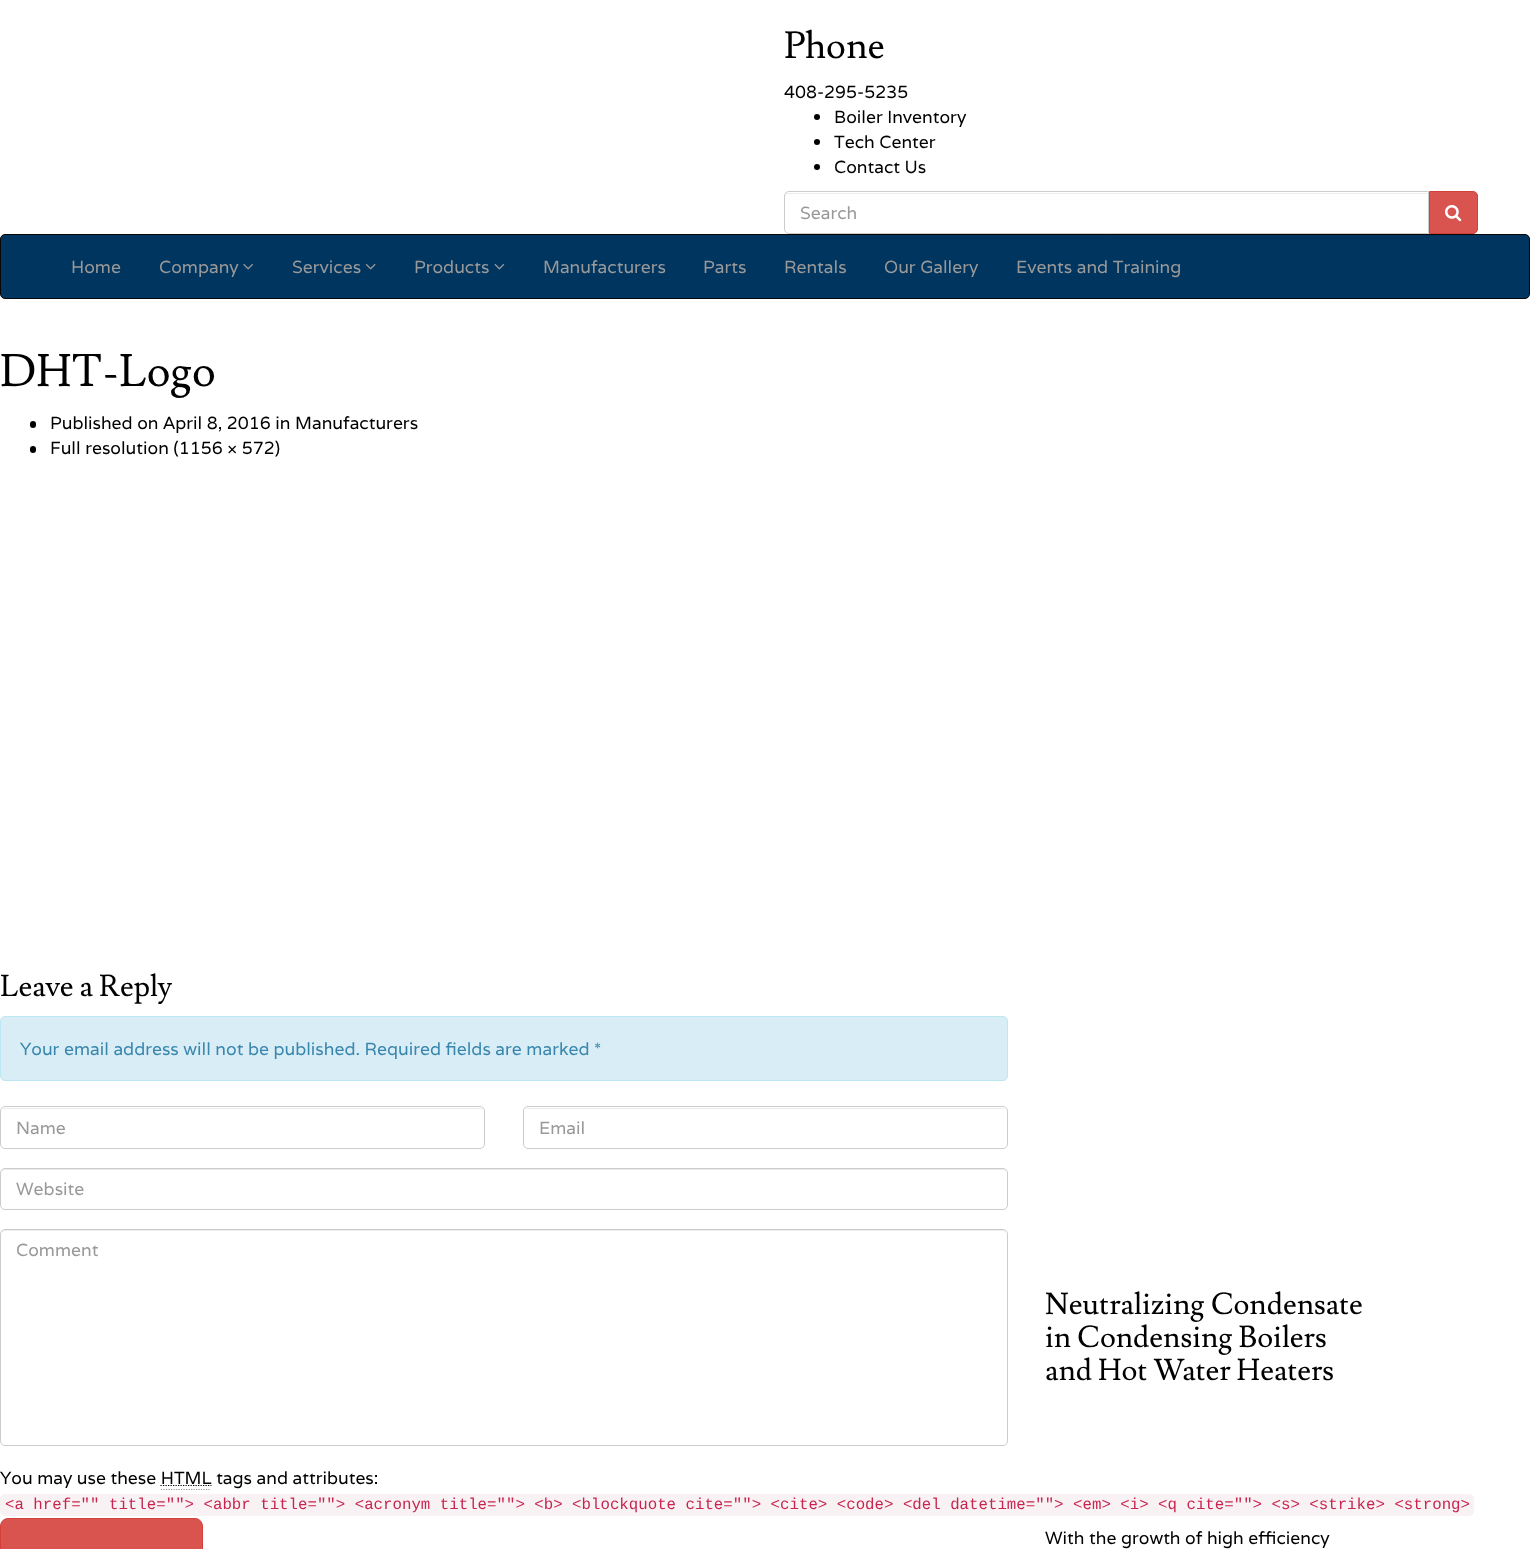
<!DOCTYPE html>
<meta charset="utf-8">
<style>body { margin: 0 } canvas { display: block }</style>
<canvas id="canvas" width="1530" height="1549"></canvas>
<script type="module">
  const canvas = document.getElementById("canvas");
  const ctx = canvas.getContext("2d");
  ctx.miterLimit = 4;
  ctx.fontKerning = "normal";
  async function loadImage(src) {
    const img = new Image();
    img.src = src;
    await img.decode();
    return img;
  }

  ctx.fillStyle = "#ffffff";
  ctx.fillRect(0, 0, 1530, 1549);
  ctx.font = "37.5px Lusitana";
  ctx.fillStyle = "#000000";
  ctx.fillText("Phone", 784, 58);
  ctx.font = "17.5px Varela";
  ctx.fillText("408-295-5235", 784, 98);
  ctx.beginPath();
  ctx.arc(817, 117, 3, 0, Math.PI * 2);
  ctx.fill();
  ctx.fillText("Boiler Inventory", 834, 123);
  ctx.beginPath();
  ctx.arc(817, 142, 3, 0, Math.PI * 2);
  ctx.fill();
  ctx.fillText("Tech Center", 834, 148);
  ctx.beginPath();
  ctx.arc(817, 167, 3, 0, Math.PI * 2);
  ctx.fill();
  ctx.fillText("Contact Us", 834, 173);
  ctx.fillStyle = "#ececec";
  ctx.beginPath();
  ctx.moveTo(789, 194);
  ctx.lineTo(1428, 194);
  ctx.lineTo(1428, 193);
  ctx.lineTo(789, 193);
  ctx.bezierCurveTo(786, 193, 785, 195, 785, 198);
  ctx.bezierCurveTo(785, 195, 787, 194, 789, 194);
  ctx.closePath();
  ctx.fill();
  ctx.beginPath();
  ctx.roundRect(784.5, 191.5, 644, 42, [4.5, 0, 0, 4.5]);
  ctx.strokeStyle = "#cccccc";
  ctx.stroke();
  ctx.fillStyle = "#999999";
  ctx.fillText("Search", 800, 219);
  ctx.fillStyle = "#d9534f";
  ctx.beginPath();
  ctx.roundRect(1429.5, 191.5, 48, 42, [0, 4.5, 4.5, 0]);
  ctx.fill();
  ctx.strokeStyle = "#d43f3a";
  ctx.stroke();
  ctx.drawImage(await loadImage("img1.png"), 1445, 205, 17, 17);
  ctx.fillStyle = "#00355f";
  ctx.beginPath();
  ctx.roundRect(0.5, 234.5, 1529, 64, 4.5);
  ctx.fill();
  ctx.strokeStyle = "#080808";
  ctx.stroke();
  ctx.fillStyle = "#999999";
  ctx.fillText("Home", 71, 273);
  ctx.fillText("Company", 159, 273);
  ctx.drawImage(await loadImage("img2.png"), 243, 263, 10, 7);
  ctx.fillText("Services", 292, 273);
  ctx.drawImage(await loadImage("img3.png"), 365, 263, 11, 7);
  ctx.fillText("Products", 414, 273);
  ctx.drawImage(await loadImage("img4.png"), 494, 263, 11, 7);
  ctx.fillText("Manufacturers", 543, 273);
  ctx.fillText("Parts", 703, 273);
  ctx.fillText("Rentals", 784, 273);
  ctx.fillText("Our Gallery", 884, 273);
  ctx.fillText("Events and Training", 1016, 273);
  ctx.font = "45px Lusitana";
  ctx.fillStyle = "#000000";
  ctx.fillText("DHT-Logo", 0, 386);
  ctx.beginPath();
  ctx.roundRect(30, 421, 6, 7, 3);
  ctx.fill();
  ctx.font = "17.5px Varela";
  ctx.fillText("Published on April 8, 2016 in Manufacturers", 50, 429);
  ctx.beginPath();
  ctx.roundRect(30, 446, 6, 7, 3);
  ctx.fill();
  ctx.fillText("Full resolution (1156 × 572)", 50, 454);
  ctx.font = "30px Lusitana";
  ctx.fillText("Leave a Reply", 0, 996);
  ctx.fillStyle = "#d9edf7";
  ctx.beginPath();
  ctx.roundRect(0.5, 1016.5, 1007, 64, 4.5);
  ctx.fill();
  ctx.strokeStyle = "#bce8f1";
  ctx.stroke();
  ctx.font = "17.5px Varela";
  ctx.fillStyle = "#3a87ad";
  ctx.fillText("Your email address will not be published. Required fields are marked *", 20, 1055);
  ctx.fillStyle = "#ececec";
  ctx.beginPath();
  ctx.moveTo(5, 1109);
  ctx.lineTo(480, 1109);
  ctx.bezierCurveTo(482, 1109, 484, 1110, 484, 1112);
  ctx.bezierCurveTo(484, 1110, 482, 1108, 480, 1108);
  ctx.lineTo(5, 1108);
  ctx.bezierCurveTo(3, 1108, 1, 1110, 1, 1112);
  ctx.bezierCurveTo(1, 1110, 3, 1109, 5, 1109);
  ctx.closePath();
  ctx.fill();
  ctx.beginPath();
  ctx.roundRect(0.5, 1106.5, 484, 42, 4.5);
  ctx.strokeStyle = "#cccccc";
  ctx.stroke();
  ctx.fillStyle = "#999999";
  ctx.fillText("Name", 16, 1134);
  ctx.fillStyle = "#ececec";
  ctx.beginPath();
  ctx.moveTo(528, 1109);
  ctx.lineTo(1004, 1109);
  ctx.lineTo(1006, 1110);
  ctx.bezierCurveTo(1005, 1109, 1004, 1108, 1002, 1108);
  ctx.lineTo(528, 1108);
  ctx.bezierCurveTo(526, 1108, 525, 1109, 524, 1110);
  ctx.bezierCurveTo(525, 1109, 526, 1109, 528, 1109);
  ctx.closePath();
  ctx.fill();
  ctx.beginPath();
  ctx.roundRect(523.5, 1106.5, 484, 42, 4.5);
  ctx.stroke();
  ctx.fillStyle = "#999999";
  ctx.fillText("Email", 539, 1134);
  ctx.fillStyle = "#ececec";
  ctx.beginPath();
  ctx.moveTo(5, 1170);
  ctx.lineTo(1002, 1170);
  ctx.bezierCurveTo(1005, 1170, 1006, 1172, 1006, 1174);
  ctx.bezierCurveTo(1006, 1171, 1005, 1169, 1002, 1169);
  ctx.lineTo(5, 1169);
  ctx.bezierCurveTo(2, 1169, 1, 1171, 1, 1174);
  ctx.bezierCurveTo(1, 1172, 3, 1170, 5, 1170);
  ctx.closePath();
  ctx.fill();
  ctx.beginPath();
  ctx.roundRect(0.5, 1168.5, 1007, 41, 4.5);
  ctx.stroke();
  ctx.fillStyle = "#999999";
  ctx.fillText("Website", 16, 1195);
  ctx.fillStyle = "#ececec";
  ctx.beginPath();
  ctx.moveTo(5, 1231);
  ctx.lineTo(1002, 1231);
  ctx.bezierCurveTo(1005, 1231, 1006, 1233, 1006, 1235);
  ctx.bezierCurveTo(1006, 1232, 1005, 1230, 1002, 1230);
  ctx.lineTo(5, 1230);
  ctx.bezierCurveTo(2, 1230, 1, 1232, 1, 1235);
  ctx.bezierCurveTo(1, 1233, 3, 1231, 5, 1231);
  ctx.closePath();
  ctx.fill();
  ctx.beginPath();
  ctx.roundRect(0.5, 1229.5, 1007, 216, 4.5);
  ctx.stroke();
  ctx.fillStyle = "#999999";
  ctx.fillText("Comment", 16, 1256);
  ctx.fillStyle = "#000000";
  ctx.fillText("You may use these HTML tags and attributes:", 0, 1484);
  ctx.beginPath();
  ctx.moveTo(160.5, 1485.5);
  ctx.lineTo(211.5, 1485.5);
  ctx.strokeStyle = "#000000";
  ctx.lineWidth = 1.2;
  ctx.setLineDash([1.25, 1.25]);
  ctx.stroke();
  ctx.beginPath();
  ctx.moveTo(161, 1489.5);
  ctx.lineTo(211, 1489.5);
  ctx.strokeStyle = "#999999";
  ctx.stroke();
  ctx.fillStyle = "#f9f2f4";
  ctx.beginPath();
  ctx.roundRect(0, 1494, 1474, 22, 5);
  ctx.fill();
  ctx.font = "15.75px Liberation Mono";
  ctx.fillStyle = "#c7254e";
  ctx.fillText("<a href=\"\" title=\"\"> <abbr title=\"\"> <acronym title=\"\"> <b> <blockquote cite=\"\"> <cite> <code> <del datetime=\"\"> <em> <i> <q cite=\"\"> <s> <strike> <strong>", 5, 1509);
  ctx.fillStyle = "#d9534f";
  ctx.beginPath();
  ctx.roundRect(0.5, 1518.5, 202, 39, 7.5);
  ctx.fill();
  ctx.strokeStyle = "#d43f3a";
  ctx.lineWidth = 1;
  ctx.setLineDash([]);
  ctx.stroke();
  ctx.font = "30px Lusitana";
  ctx.fillStyle = "#000000";
  ctx.fillText("Neutralizing Condensate", 1045, 1314);
  ctx.fillText("in Condensing Boilers", 1045, 1347);
  ctx.fillText("and Hot Water Heaters", 1045, 1380);
  ctx.font = "17.5px Varela";
  ctx.fillText("With the growth of high efficiency", 1045, 1544);
</script>
